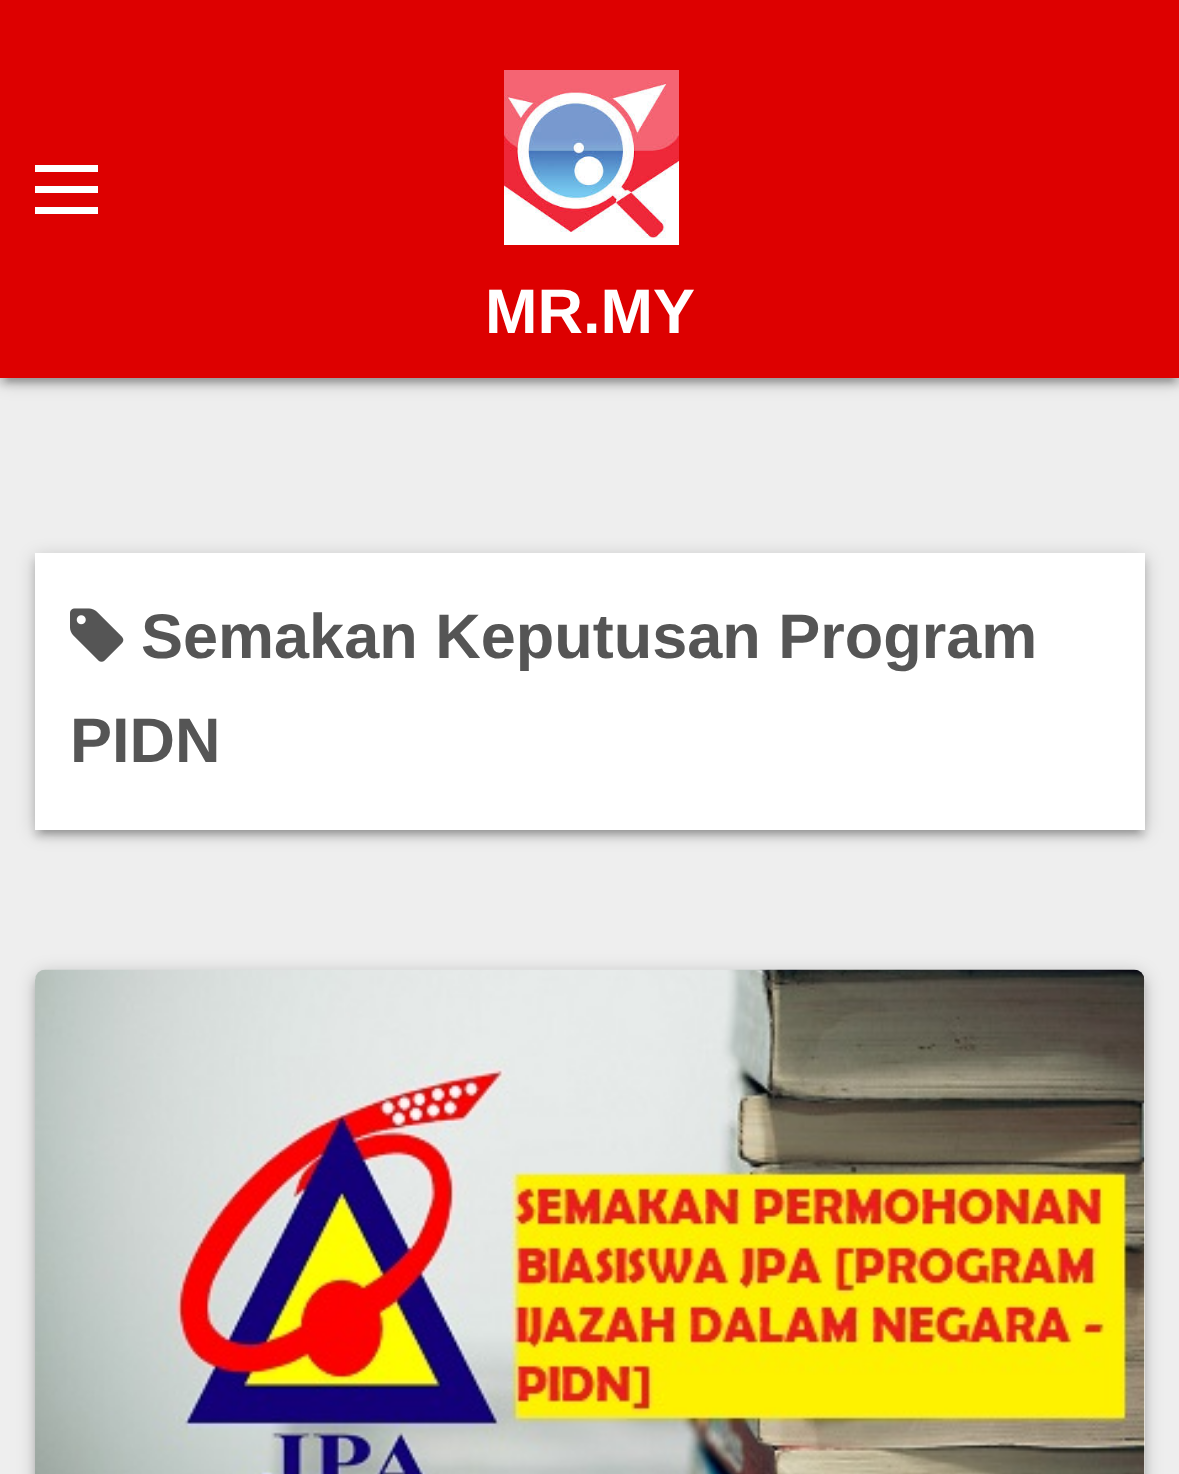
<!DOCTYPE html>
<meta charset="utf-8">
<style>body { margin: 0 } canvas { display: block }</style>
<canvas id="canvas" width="1179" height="1474"></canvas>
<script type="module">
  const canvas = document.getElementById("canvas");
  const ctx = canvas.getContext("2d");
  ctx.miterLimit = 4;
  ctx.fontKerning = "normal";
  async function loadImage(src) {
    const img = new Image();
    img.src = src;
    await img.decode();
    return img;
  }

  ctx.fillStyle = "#eeeeee";
  ctx.fillRect(0, 0, 1179, 1474);
  ctx.fillStyle = "rgba(0, 0, 0, 0.2)";
  ctx.filter = "blur(9px)";
  ctx.beginPath();
  ctx.rect(0, 4, 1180, 378);
  ctx.fill();
  ctx.filter = "none";
  ctx.fillStyle = "rgba(0, 0, 0, 0.12)";
  ctx.filter = "blur(2px)";
  ctx.beginPath();
  ctx.rect(7, 18, 1166, 364);
  ctx.fill();
  ctx.filter = "none";
  ctx.fillStyle = "rgba(0, 0, 0, 0.14)";
  ctx.filter = "blur(3.5px)";
  ctx.beginPath();
  ctx.rect(0, 7, 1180, 378);
  ctx.fill();
  ctx.filter = "none";
  ctx.fillStyle = "#dd0000";
  ctx.fillRect(0, 0, 1179, 378);
  ctx.fillStyle = "#ffffff";
  ctx.fillRect(35, 186, 63, 7);
  ctx.fillRect(35, 165, 63, 7);
  ctx.fillRect(35, 207, 63, 7);
  ctx.drawImage(await loadImage("img1.png"), 504, 70, 175, 175);
  ctx.font = "bold 63px Liberation Sans";
  ctx.fillText("MR.MY", 485, 333);
  ctx.fillStyle = "rgba(0, 0, 0, 0.2)";
  ctx.filter = "blur(9px)";
  ctx.beginPath();
  ctx.rect(35, 557, 1110, 276);
  ctx.fill();
  ctx.filter = "none";
  ctx.fillStyle = "rgba(0, 0, 0, 0.12)";
  ctx.filter = "blur(2px)";
  ctx.beginPath();
  ctx.rect(42, 571, 1096, 262);
  ctx.fill();
  ctx.filter = "none";
  ctx.fillStyle = "rgba(0, 0, 0, 0.14)";
  ctx.filter = "blur(3.5px)";
  ctx.beginPath();
  ctx.rect(35, 560, 1110, 277);
  ctx.fill();
  ctx.filter = "none";
  ctx.fillStyle = "#ffffff";
  ctx.fillRect(35, 553, 1110, 277);
  ctx.drawImage(await loadImage("img2.png"), 70, 608, 54, 54);
  ctx.fillStyle = "#555555";
  ctx.fillText("Semakan Keputusan Program", 141, 658);
  ctx.fillText("PIDN", 70, 762);
  ctx.fillStyle = "rgba(0, 0, 0, 0.2)";
  ctx.filter = "blur(9px)";
  ctx.beginPath();
  ctx.roundRect(35, 973, 1110, 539, 11);
  ctx.fill();
  ctx.filter = "none";
  ctx.fillStyle = "rgba(0, 0, 0, 0.14)";
  ctx.filter = "blur(3.5px)";
  ctx.beginPath();
  ctx.roundRect(35, 977, 1110, 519, 11);
  ctx.fill();
  ctx.filter = "none";
  ctx.fillStyle = "#ffffff";
  ctx.beginPath();
  ctx.roundRect(35, 970, 1110, 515, 11);
  ctx.fill();
  ctx.drawImage(await loadImage("img3.png"), 35, 969, 1110, 505);
</script>
